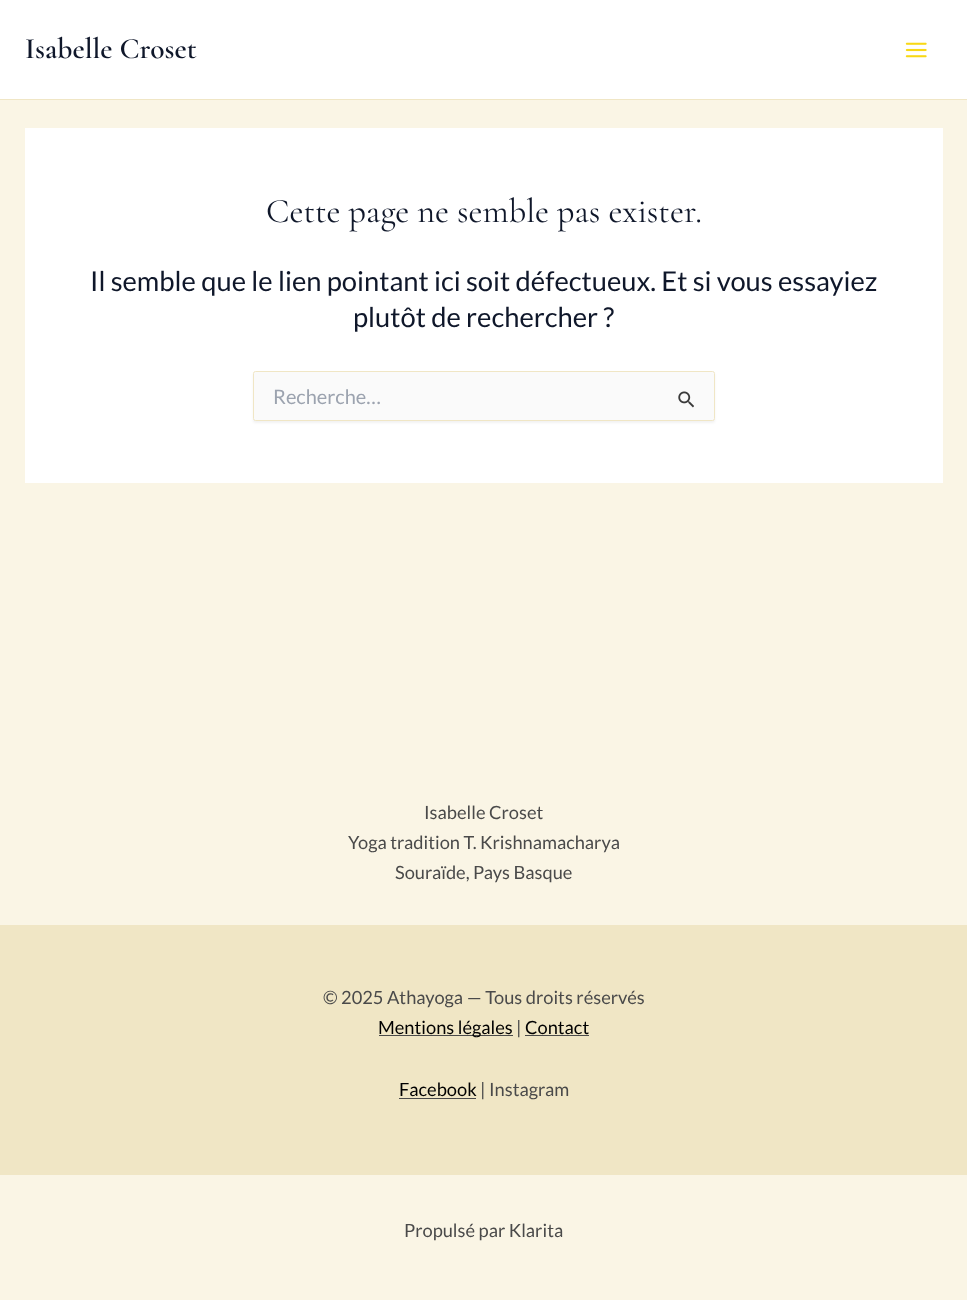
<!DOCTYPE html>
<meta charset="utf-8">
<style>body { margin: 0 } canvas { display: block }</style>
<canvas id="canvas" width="967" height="1300"></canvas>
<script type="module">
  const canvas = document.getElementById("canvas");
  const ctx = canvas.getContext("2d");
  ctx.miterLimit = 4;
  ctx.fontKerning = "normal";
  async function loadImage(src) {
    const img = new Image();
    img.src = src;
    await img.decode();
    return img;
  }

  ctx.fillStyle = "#faf5e5";
  ctx.fillRect(0, 0, 967, 1300);
  ctx.fillStyle = "#ffffff";
  ctx.fillRect(0, 0, 967, 99);
  ctx.fillStyle = "#f0e6c5";
  ctx.fillRect(0, 99, 967, 1);
  ctx.font = "600 29.5px Cormorant Garamond";
  ctx.fillStyle = "#0f172a";
  ctx.fillText("Isabelle Croset", 25, 58);
  ctx.drawImage(await loadImage("img1.png"), 905, 42, 22, 16);
  ctx.fillStyle = "#ffffff";
  ctx.fillRect(25, 128, 918, 355);
  ctx.font = "34.25px Cormorant Garamond";
  ctx.fillStyle = "#0f172a";
  ctx.fillText("Cette page ne semble pas exister.", 266, 222);
  ctx.font = "27.35px Lato";
  ctx.fillText("Il semble que le lien pointant ici soit défectueux. Et si vous essayiez", 90, 291);
  ctx.fillText("plutôt de rechercher ?", 353, 327);
  ctx.fillStyle = "rgba(0, 0, 0, 0.05)";
  ctx.filter = "blur(1px)";
  ctx.beginPath();
  ctx.roundRect(253, 373, 462, 50, 2.5);
  ctx.fill();
  ctx.filter = "none";
  ctx.fillStyle = "#fafafa";
  ctx.beginPath();
  ctx.roundRect(253.5, 371.5, 461, 49, 2);
  ctx.fill();
  ctx.strokeStyle = "#f0e6c5";
  ctx.stroke();
  ctx.font = "20px Lato";
  ctx.fillStyle = "#9ca3af";
  ctx.fillText("Recherche…", 273, 404);
  ctx.drawImage(await loadImage("img2.png"), 678, 391, 16, 17);
  ctx.font = "18.25px Lato";
  ctx.fillStyle = "#4a4a4a";
  ctx.fillText("Isabelle Croset", 424, 819);
  ctx.fillText("Yoga tradition T. Krishnamacharya", 348, 849);
  ctx.fillText("Souraïde, Pays Basque", 395, 879);
  ctx.fillStyle = "#f0e6c5";
  ctx.fillRect(0, 925, 967, 250);
  ctx.fillStyle = "#4a4a4a";
  ctx.fillText("© 2025 Athayoga — Tous droits réservés", 323, 1004);
  ctx.fillRect(379, 1035, 134, 1);
  ctx.fillStyle = "#000000";
  ctx.fillText("Mentions légales", 378, 1034);
  ctx.fillStyle = "#4a4a4a";
  ctx.fillText("|", 516, 1034);
  ctx.fillStyle = "#000000";
  ctx.fillText("Contact", 525, 1034);
  ctx.fillStyle = "#4a4a4a";
  ctx.fillRect(525, 1035, 64, 1);
  ctx.fillStyle = "#000000";
  ctx.fillText("Facebook", 399, 1096);
  ctx.fillStyle = "#4a4a4a";
  ctx.fillRect(399, 1098, 77, 1);
  ctx.fillText("| Instagram", 480, 1096);
  ctx.fillText("Propulsé par Klarita", 404, 1237);
</script>
